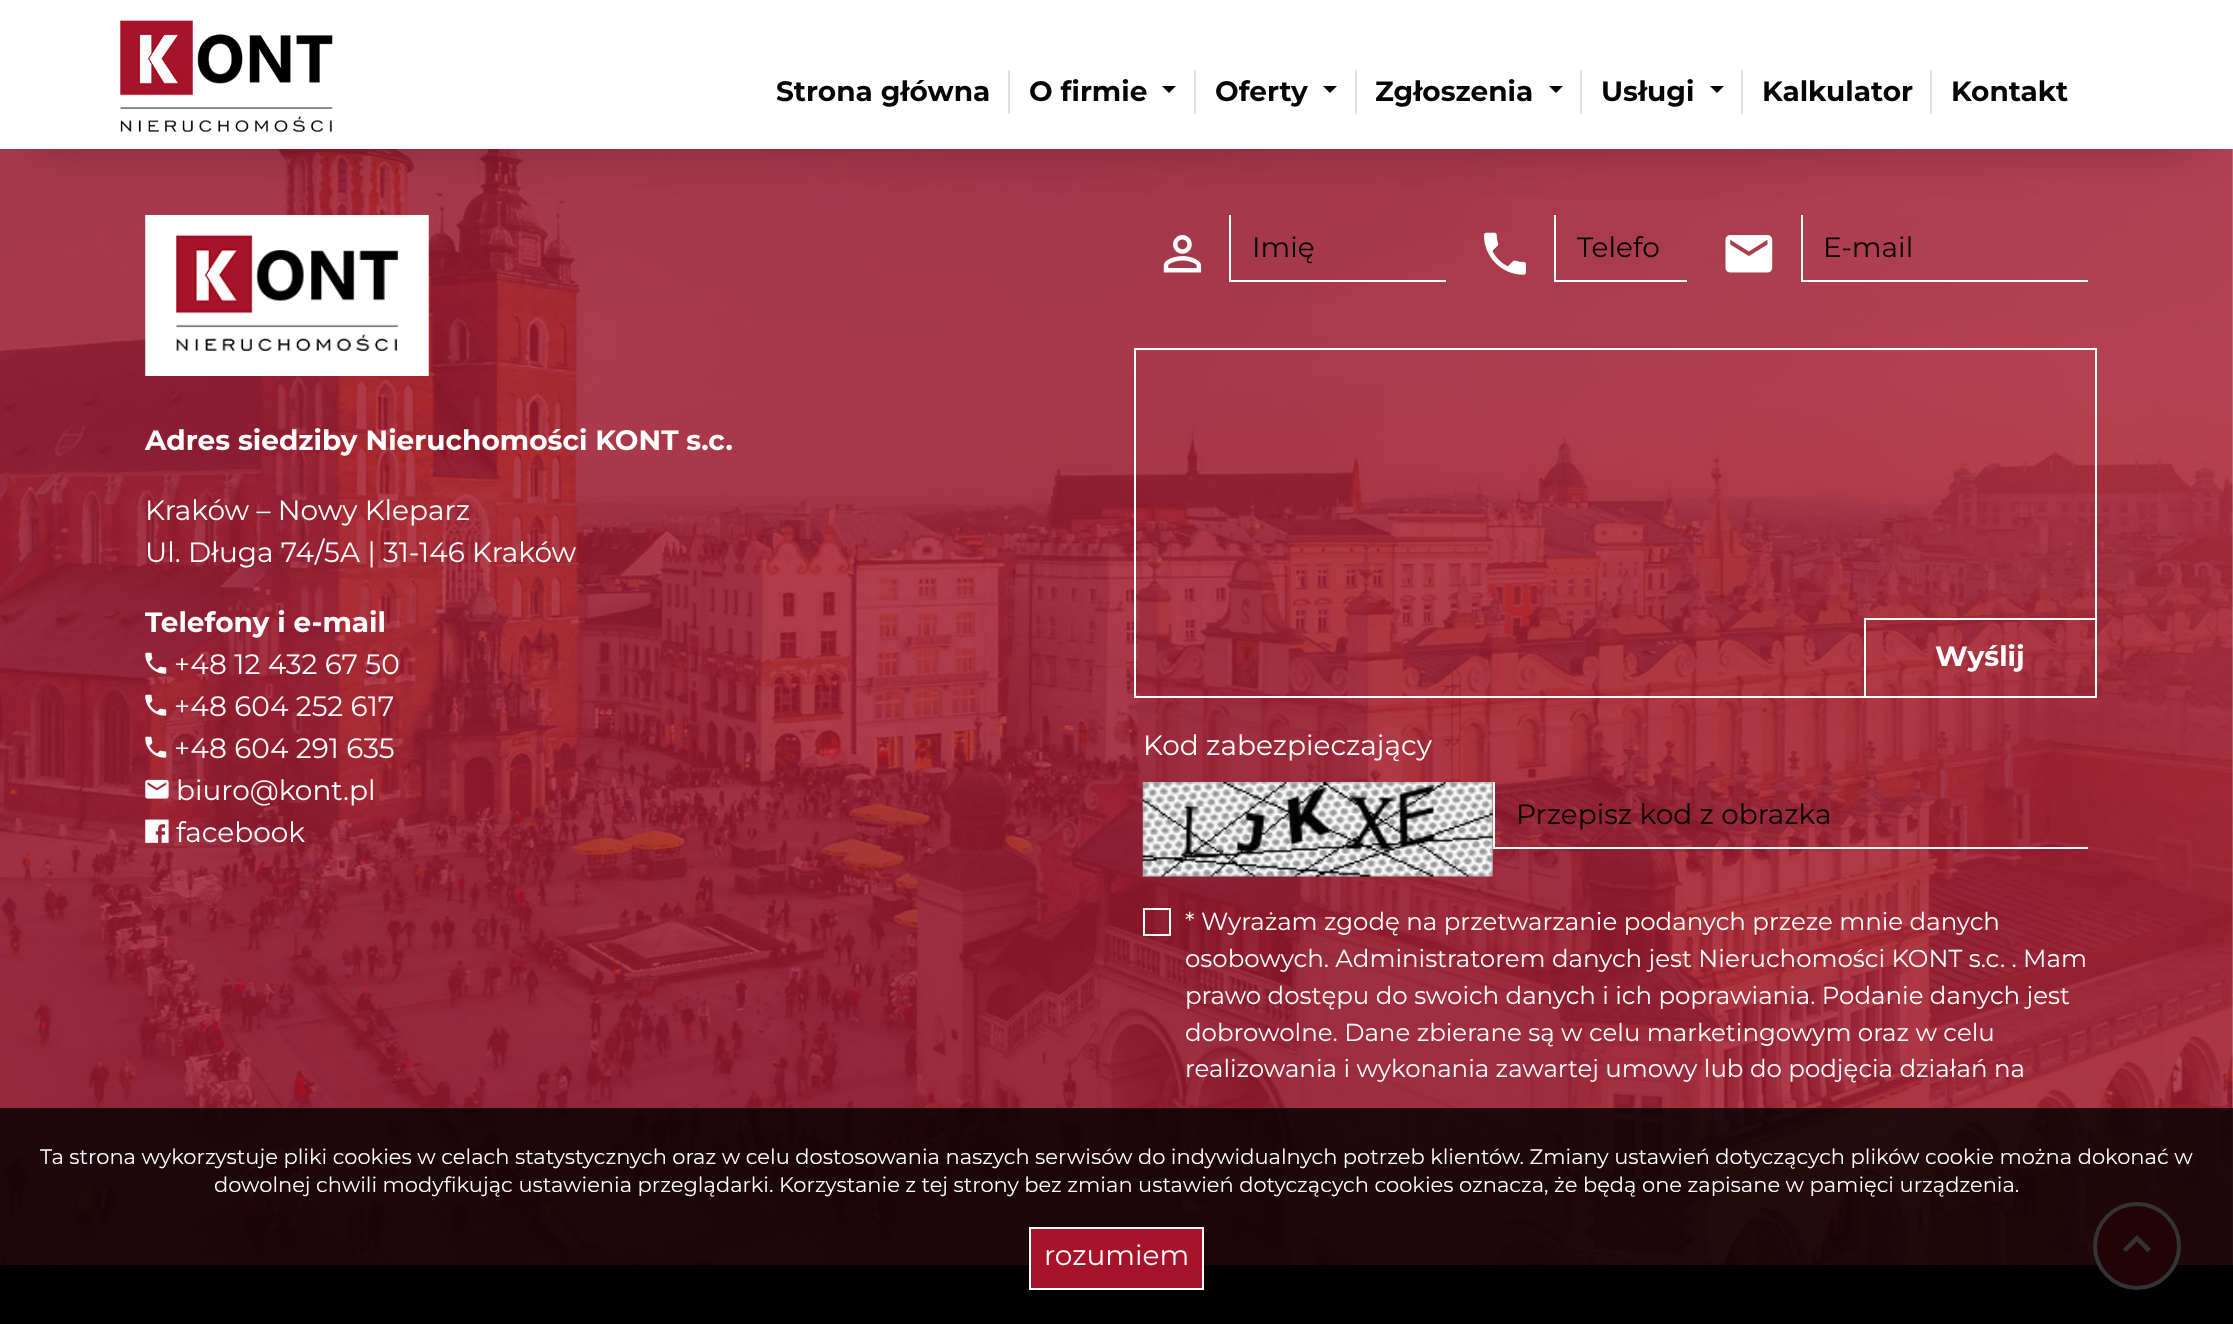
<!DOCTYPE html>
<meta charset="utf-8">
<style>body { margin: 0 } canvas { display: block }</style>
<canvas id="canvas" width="2233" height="1324"></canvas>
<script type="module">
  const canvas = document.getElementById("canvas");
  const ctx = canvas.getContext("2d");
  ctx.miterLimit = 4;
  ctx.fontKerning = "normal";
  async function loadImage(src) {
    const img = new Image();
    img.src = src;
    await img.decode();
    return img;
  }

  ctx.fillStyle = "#ffffff";
  ctx.fillRect(0, 0, 2233, 1324);
  ctx.drawImage(await loadImage("img2.png"), 0, 149, 2233, 1116);
  ctx.drawImage(await loadImage("img3.png"), 145, 215, 284, 161);
  ctx.fillRect(1229, 280, 217, 2);
  ctx.fillRect(1229, 215, 2, 67);
  ctx.fillRect(1554, 280, 133, 2);
  ctx.fillRect(1554, 215, 2, 67);
  ctx.fillRect(1801, 280, 287, 2);
  ctx.fillRect(1801, 215, 2, 67);
  ctx.fillStyle = "rgba(0, 0, 0, 0.2)";
  ctx.filter = "blur(22px)";
  ctx.beginPath();
  ctx.rect(33, 68, 2167, 83);
  ctx.fill();
  ctx.filter = "none";
  ctx.fillStyle = "#ffffff";
  ctx.fillRect(0, 32, 2233, 117);
  ctx.drawImage(await loadImage("img1.png"), 120, 20, 213, 112);
  ctx.font = "bold 28px Montserrat";
  ctx.fillStyle = "#060606";
  ctx.fillText("Strona główna", 776, 101);
  ctx.fillStyle = "#e1e1e1";
  ctx.fillRect(1008, 70, 2, 44);
  ctx.fillStyle = "#060606";
  ctx.fillText("O firmie", 1029, 101);
  ctx.beginPath();
  ctx.moveTo(1162, 86);
  ctx.lineTo(1176, 86);
  ctx.lineTo(1169, 93);
  ctx.closePath();
  ctx.fill();
  ctx.fillStyle = "#e1e1e1";
  ctx.fillRect(1194, 70, 2, 44);
  ctx.fillStyle = "#060606";
  ctx.fillText("Oferty", 1215, 101);
  ctx.beginPath();
  ctx.moveTo(1323, 86);
  ctx.lineTo(1337, 86);
  ctx.lineTo(1330, 93);
  ctx.closePath();
  ctx.fill();
  ctx.fillStyle = "#e1e1e1";
  ctx.fillRect(1355, 70, 2, 44);
  ctx.fillStyle = "#060606";
  ctx.fillText("Zgłoszenia", 1375, 101);
  ctx.beginPath();
  ctx.moveTo(1549, 86);
  ctx.lineTo(1563, 86);
  ctx.lineTo(1556, 93);
  ctx.closePath();
  ctx.fill();
  ctx.fillStyle = "#e1e1e1";
  ctx.fillRect(1580, 70, 2, 44);
  ctx.fillStyle = "#060606";
  ctx.fillText("Usługi", 1601, 101);
  ctx.beginPath();
  ctx.moveTo(1710, 86);
  ctx.lineTo(1724, 86);
  ctx.lineTo(1717, 93);
  ctx.closePath();
  ctx.fill();
  ctx.fillStyle = "#e1e1e1";
  ctx.fillRect(1741, 70, 2, 44);
  ctx.fillStyle = "#060606";
  ctx.fillText("Kalkulator", 1762, 101);
  ctx.fillStyle = "#e1e1e1";
  ctx.fillRect(1930, 70, 2, 44);
  ctx.fillStyle = "#060606";
  ctx.fillText("Kontakt", 1951, 101);
  ctx.fillStyle = "#ffffff";
  ctx.fillText("Adres siedziby Nieruchomości KONT s.c.", 145, 450);
  ctx.font = "28px Montserrat";
  ctx.fillText("Kraków – Nowy Kleparz", 145, 520);
  ctx.fillText("Ul. Długa 74/5A | 31-146 Kraków", 145, 562);
  ctx.font = "bold 28px Montserrat";
  ctx.fillText("Telefony i e-mail", 145, 632);
  ctx.drawImage(await loadImage("img4.png"), 145, 652, 22, 22);
  ctx.font = "28px Montserrat";
  ctx.fillText("+48 12 432 67 50", 174, 674);
  ctx.drawImage(await loadImage("img5.png"), 145, 694, 22, 22);
  ctx.fillText("+48 604 252 617", 174, 716);
  ctx.drawImage(await loadImage("img6.png"), 145, 736, 22, 22);
  ctx.fillText("+48 604 291 635", 174, 758);
  ctx.drawImage(await loadImage("img7.png"), 145, 779, 24, 20);
  ctx.fillText("biuro@kont.pl", 176, 800);
  ctx.drawImage(await loadImage("img8.png"), 145, 819, 24, 24);
  ctx.fillText("facebook", 176, 842);
  ctx.drawImage(await loadImage("img9.png"), 1163, 235, 39, 38);
  ctx.fillStyle = "#000000";
  ctx.fillText("Imię", 1252, 257);
  ctx.drawImage(await loadImage("img10.png"), 1484, 232, 42, 43);
  ctx.fillText("Telefo", 1577, 257);
  ctx.drawImage(await loadImage("img11.png"), 1725, 235, 48, 38);
  ctx.fillText("E-mail", 1823, 257);
  ctx.strokeStyle = "#ffffff";
  ctx.lineWidth = 2;
  ctx.strokeRect(1135, 349, 961, 348);
  ctx.strokeRect(1865, 619, 231, 78);
  ctx.font = "bold 28px Montserrat";
  ctx.fillStyle = "#ffffff";
  ctx.fillText("Wyślij", 1935, 666);
  ctx.font = "28px Montserrat";
  ctx.fillText("Kod zabezpieczający", 1143, 755);
  ctx.drawImage(await loadImage("img12.png"), 1142, 782, 351, 95);
  ctx.fillRect(1493, 847, 595, 2);
  ctx.fillRect(1493, 782, 2, 67);
  ctx.fillStyle = "#000000";
  ctx.fillText("Przepisz kod z obrazka", 1516, 824);
  ctx.strokeRect(1144, 909, 26, 26);
  ctx.font = "24.5px Montserrat";
  ctx.fillStyle = "#ffffff";
  ctx.fillText("* Wyrażam zgodę na przetwarzanie podanych przeze mnie danych", 1185, 930);
  ctx.fillText("osobowych. Administratorem danych jest Nieruchomości KONT s.c. . Mam", 1185, 967);
  ctx.fillText("prawo dostępu do swoich danych i ich poprawiania. Podanie danych jest", 1185, 1004);
  ctx.fillText("dobrowolne. Dane zbierane są w celu marketingowym oraz w celu", 1185, 1041);
  ctx.fillText("realizowania i wykonania zawartej umowy lub do podjęcia działań na", 1185, 1077);
  ctx.fillStyle = "#060606";
  ctx.fillRect(0, 1265, 2233, 59);
  ctx.fillStyle = "#a71329";
  ctx.beginPath();
  ctx.arc(2137, 1246, 42, 0, Math.PI * 2);
  ctx.fill();
  ctx.lineWidth = 4;
  ctx.stroke();
  ctx.fillStyle = "#ffffff";
  ctx.beginPath();
  ctx.moveTo(2137, 1235);
  ctx.lineTo(2151, 1249);
  ctx.lineTo(2147.5, 1252);
  ctx.lineTo(2137, 1241.5);
  ctx.lineTo(2126, 1252);
  ctx.lineTo(2123, 1249);
  ctx.closePath();
  ctx.fill();
  ctx.fillStyle = "rgba(0, 0, 0, 0.8)";
  ctx.fillRect(0, 1108, 2233, 216);
  ctx.font = "21px Montserrat";
  ctx.fillStyle = "#ffffff";
  ctx.fillText("Ta strona wykorzystuje pliki cookies w celach statystycznych oraz w celu dostosowania naszych serwisów do indywidualnych potrzeb klientów. Zmiany ustawień dotyczących plików cookie można dokonać w", 40, 1164);
  ctx.fillText("dowolnej chwili modyfikując ustawienia przeglądarki. Korzystanie z tej strony bez zmian ustawień dotyczących cookies oznacza, że będą one zapisane w pamięci urządzenia.", 214, 1192);
  ctx.fillStyle = "#a71329";
  ctx.beginPath();
  ctx.rect(1030, 1228, 173, 61);
  ctx.fill();
  ctx.lineWidth = 2;
  ctx.stroke();
  ctx.font = "28px Montserrat";
  ctx.fillStyle = "#ffffff";
  ctx.fillText("rozumiem", 1044, 1265);
</script>
